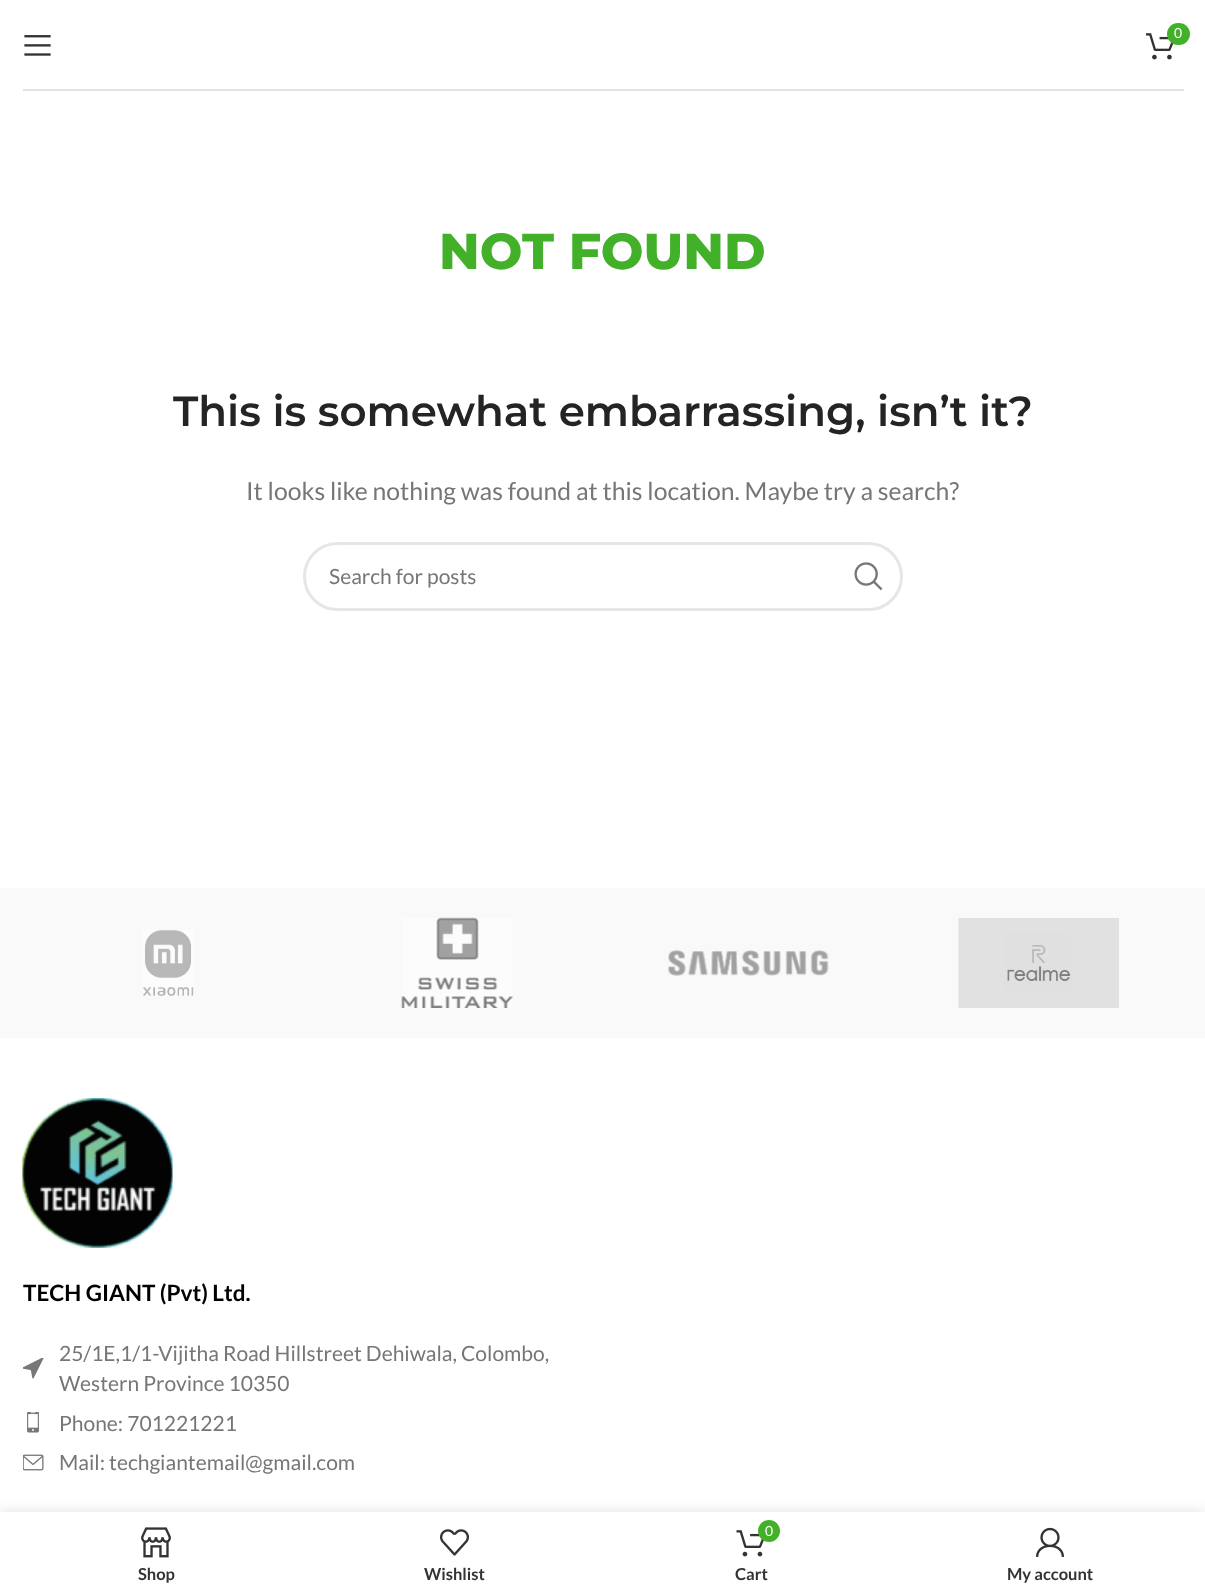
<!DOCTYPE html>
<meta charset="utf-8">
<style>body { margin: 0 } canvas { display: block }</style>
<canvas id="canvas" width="1205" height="1594"></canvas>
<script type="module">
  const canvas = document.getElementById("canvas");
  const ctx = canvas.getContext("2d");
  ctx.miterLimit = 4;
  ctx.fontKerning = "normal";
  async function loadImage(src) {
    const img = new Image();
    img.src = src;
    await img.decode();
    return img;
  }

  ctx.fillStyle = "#ffffff";
  ctx.fillRect(0, 0, 1205, 1594);
  ctx.fillStyle = "#e3e3e3";
  ctx.fillRect(23, 89, 1161, 2);
  ctx.drawImage(await loadImage("img1.png"), 1146, 33, 28, 27);
  ctx.fillStyle = "#43b02a";
  ctx.beginPath();
  ctx.roundRect(1167, 23, 23, 22, 11);
  ctx.fill();
  ctx.font = "14px Lato";
  ctx.fillStyle = "#ffffff";
  ctx.fillText("0", 1174, 38);
  ctx.drawImage(await loadImage("img2.png"), 24, 35, 27, 21);
  ctx.font = "800 50.5px Montserrat";
  ctx.fillStyle = "#43b02a";
  ctx.fillText("NOT FOUND", 439, 269);
  ctx.font = "600 42px Montserrat";
  ctx.fillStyle = "#242424";
  ctx.fillText("This is somewhat embarrassing, isn’t it?", 173, 426);
  ctx.font = "24.75px Lato";
  ctx.fillStyle = "#767676";
  ctx.fillText("It looks like nothing was found at this location. Maybe try a search?", 246, 500);
  ctx.beginPath();
  ctx.roundRect(304.5, 543.5, 597, 66, 33);
  ctx.strokeStyle = "#e6e6e6";
  ctx.lineWidth = 3;
  ctx.stroke();
  ctx.font = "21px Lato";
  ctx.fillText("Search for posts", 329, 584);
  ctx.drawImage(await loadImage("img3.png"), 854, 562, 29, 29);
  ctx.fillStyle = "#f9f9f9";
  ctx.fillRect(0, 888, 1205, 150);
  ctx.drawImage(await loadImage("img4.png"), 143, 930, 51, 66);
  ctx.drawImage(await loadImage("img5.png"), 401, 917, 113, 91);
  ctx.drawImage(await loadImage("img6.png"), 668, 950, 161, 26);
  ctx.drawImage(await loadImage("img7.png"), 958, 918, 161, 90);
  ctx.drawImage(await loadImage("img8.png"), 22, 1098, 151, 150);
  ctx.font = "bold 22.5px Lato";
  ctx.fillStyle = "#000000";
  ctx.fillText("TECH GIANT (Pvt) Ltd.", 23, 1301);
  ctx.drawImage(await loadImage("img9.png"), 23, 1358, 21, 21);
  ctx.font = "21px Lato";
  ctx.fillStyle = "#767676";
  ctx.fillText("25/1E,1/1-Vijitha Road Hillstreet Dehiwala, Colombo,", 59, 1361);
  ctx.fillText("Western Province 10350", 59, 1391);
  ctx.drawImage(await loadImage("img10.png"), 27, 1412, 12, 21);
  ctx.fillText("Phone: 701221221", 59, 1431);
  ctx.drawImage(await loadImage("img11.png"), 23, 1454, 21, 17);
  ctx.fillText("Mail: techgiantemail@gmail.com", 59, 1470);
  ctx.fillStyle = "rgba(0, 0, 0, 0.12)";
  ctx.filter = "blur(7px)";
  ctx.beginPath();
  ctx.rect(0, 1512, 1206, 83);
  ctx.fill();
  ctx.filter = "none";
  ctx.fillStyle = "#ffffff";
  ctx.fillRect(0, 1512, 1205, 82);
  ctx.drawImage(await loadImage("img12.png"), 141, 1527, 30, 31);
  ctx.font = "bold 16.5px Lato";
  ctx.fillStyle = "#333333";
  ctx.fillText("Shop", 138, 1580);
  ctx.drawImage(await loadImage("img13.png"), 440, 1529, 29, 27);
  ctx.fillText("Wishlist", 424, 1580);
  ctx.drawImage(await loadImage("img14.png"), 736, 1530, 28, 27);
  ctx.fillStyle = "#43b02a";
  ctx.beginPath();
  ctx.arc(769, 1531, 11, 0, Math.PI * 2);
  ctx.fill();
  ctx.font = "14px Lato";
  ctx.fillStyle = "#ffffff";
  ctx.fillText("0", 765, 1536);
  ctx.font = "bold 16.5px Lato";
  ctx.fillStyle = "#333333";
  ctx.fillText("Cart", 735, 1580);
  ctx.drawImage(await loadImage("img15.png"), 1036, 1527, 28, 30);
  ctx.fillText("My account", 1007, 1580);
</script>
